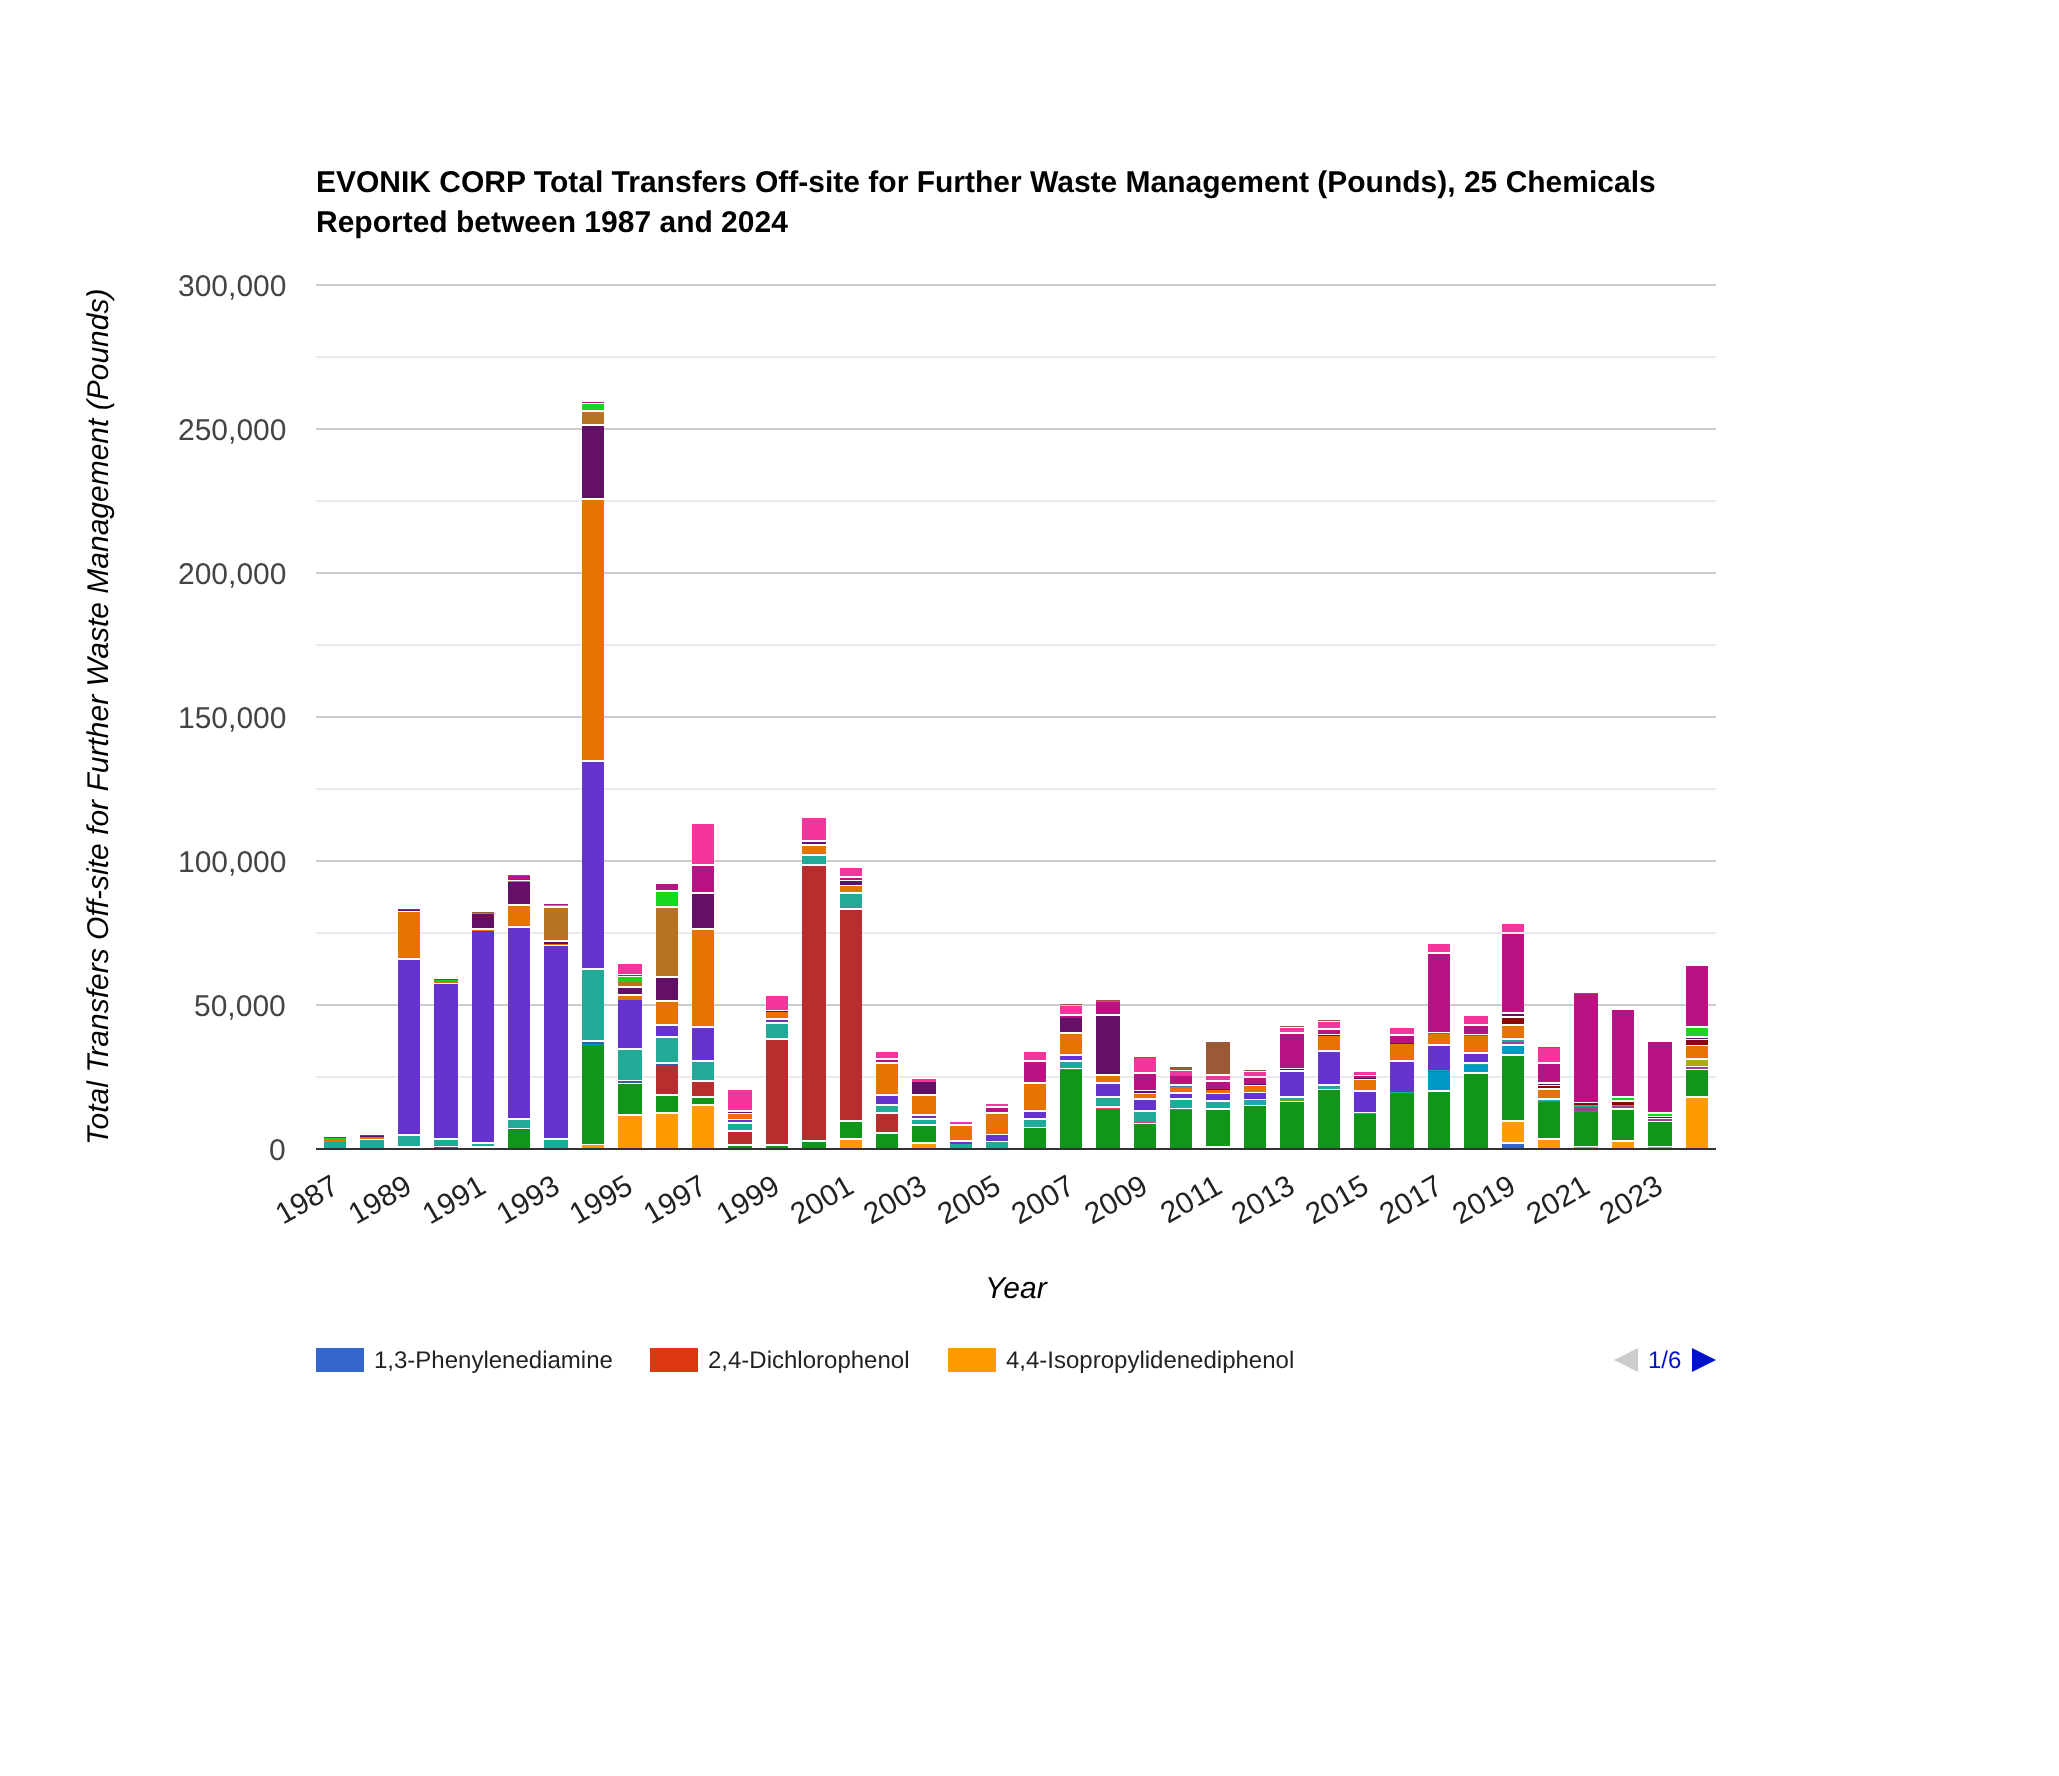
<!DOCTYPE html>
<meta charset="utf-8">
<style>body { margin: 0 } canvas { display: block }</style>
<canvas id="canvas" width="2059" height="1776"></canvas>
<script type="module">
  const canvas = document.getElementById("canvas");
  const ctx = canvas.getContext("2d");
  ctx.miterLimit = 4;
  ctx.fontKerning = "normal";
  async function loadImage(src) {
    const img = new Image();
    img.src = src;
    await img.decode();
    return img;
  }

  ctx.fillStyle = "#ffffff";
  ctx.fillRect(0, 0, 2059, 1776);
  ctx.font = "bold 30px Liberation Sans";
  ctx.fillStyle = "#000000";
  ctx.fillText("EVONIK CORP Total Transfers Off-site for Further Waste Management (Pounds), 25 Chemicals", 316, 192);
  ctx.fillText("Reported between 1987 and 2024", 316, 232);
  ctx.font = "italic 30px Liberation Sans";
  ctx.save();
  ctx.translate(108, 1145);
  ctx.rotate(-90 * Math.PI / 180);
  ctx.fillText("Total Transfers Off-site for Further Waste Management (Pounds)", 0, 0);
  ctx.restore();
  ctx.font = "30px Liberation Sans";
  ctx.fillStyle = "#444444";
  ctx.fillText("300,000", 178, 296);
  ctx.drawImage(await loadImage("img1.png"), 316, 284, 1400, 1088);
  ctx.fillText("250,000", 178, 440);
  ctx.fillText("200,000", 178, 584);
  ctx.fillText("150,000", 178, 728);
  ctx.fillText("100,000", 178, 872);
  ctx.fillText("50,000", 194, 1016);
  ctx.fillText("0", 269, 1160);
  ctx.fillStyle = "#222222";
  ctx.save();
  ctx.translate(283, 1225);
  ctx.rotate(-30 * Math.PI / 180);
  ctx.fillText("1987", 0, 0);
  ctx.restore();
  ctx.save();
  ctx.translate(356, 1225);
  ctx.rotate(-30 * Math.PI / 180);
  ctx.fillText("1989", 0, 0);
  ctx.restore();
  ctx.save();
  ctx.translate(430, 1225);
  ctx.rotate(-30 * Math.PI / 180);
  ctx.fillText("1991", 0, 0);
  ctx.restore();
  ctx.save();
  ctx.translate(504, 1225);
  ctx.rotate(-30 * Math.PI / 180);
  ctx.fillText("1993", 0, 0);
  ctx.restore();
  ctx.save();
  ctx.translate(577, 1225);
  ctx.rotate(-30 * Math.PI / 180);
  ctx.fillText("1995", 0, 0);
  ctx.restore();
  ctx.save();
  ctx.translate(651, 1225);
  ctx.rotate(-30 * Math.PI / 180);
  ctx.fillText("1997", 0, 0);
  ctx.restore();
  ctx.save();
  ctx.translate(724, 1225);
  ctx.rotate(-30 * Math.PI / 180);
  ctx.fillText("1999", 0, 0);
  ctx.restore();
  ctx.save();
  ctx.translate(798, 1225);
  ctx.rotate(-30 * Math.PI / 180);
  ctx.fillText("2001", 0, 0);
  ctx.restore();
  ctx.save();
  ctx.translate(871, 1225);
  ctx.rotate(-30 * Math.PI / 180);
  ctx.fillText("2003", 0, 0);
  ctx.restore();
  ctx.save();
  ctx.translate(945, 1225);
  ctx.rotate(-30 * Math.PI / 180);
  ctx.fillText("2005", 0, 0);
  ctx.restore();
  ctx.save();
  ctx.translate(1019, 1225);
  ctx.rotate(-30 * Math.PI / 180);
  ctx.fillText("2007", 0, 0);
  ctx.restore();
  ctx.save();
  ctx.translate(1092, 1225);
  ctx.rotate(-30 * Math.PI / 180);
  ctx.fillText("2009", 0, 0);
  ctx.restore();
  ctx.save();
  ctx.translate(1168, 1224);
  ctx.rotate(-30 * Math.PI / 180);
  ctx.fillText("2011", 0, 0);
  ctx.restore();
  ctx.save();
  ctx.translate(1239, 1225);
  ctx.rotate(-30 * Math.PI / 180);
  ctx.fillText("2013", 0, 0);
  ctx.restore();
  ctx.save();
  ctx.translate(1313, 1225);
  ctx.rotate(-30 * Math.PI / 180);
  ctx.fillText("2015", 0, 0);
  ctx.restore();
  ctx.save();
  ctx.translate(1387, 1225);
  ctx.rotate(-30 * Math.PI / 180);
  ctx.fillText("2017", 0, 0);
  ctx.restore();
  ctx.save();
  ctx.translate(1460, 1225);
  ctx.rotate(-30 * Math.PI / 180);
  ctx.fillText("2019", 0, 0);
  ctx.restore();
  ctx.save();
  ctx.translate(1534, 1225);
  ctx.rotate(-30 * Math.PI / 180);
  ctx.fillText("2021", 0, 0);
  ctx.restore();
  ctx.save();
  ctx.translate(1607, 1225);
  ctx.rotate(-30 * Math.PI / 180);
  ctx.fillText("2023", 0, 0);
  ctx.restore();
  ctx.font = "italic 30px Liberation Sans";
  ctx.fillStyle = "#000000";
  ctx.fillText("Year", 985, 1298);
  ctx.font = "24px Liberation Sans";
  ctx.fillStyle = "#222222";
  ctx.fillText("1,3-Phenylenediamine", 374, 1368);
  ctx.fillText("2,4-Dichlorophenol", 708, 1368);
  ctx.fillText("4,4-Isopropylidenediphenol", 1006, 1368);
  ctx.fillStyle = "#0011cc";
  ctx.fillText("1/6", 1648, 1368);
</script>
